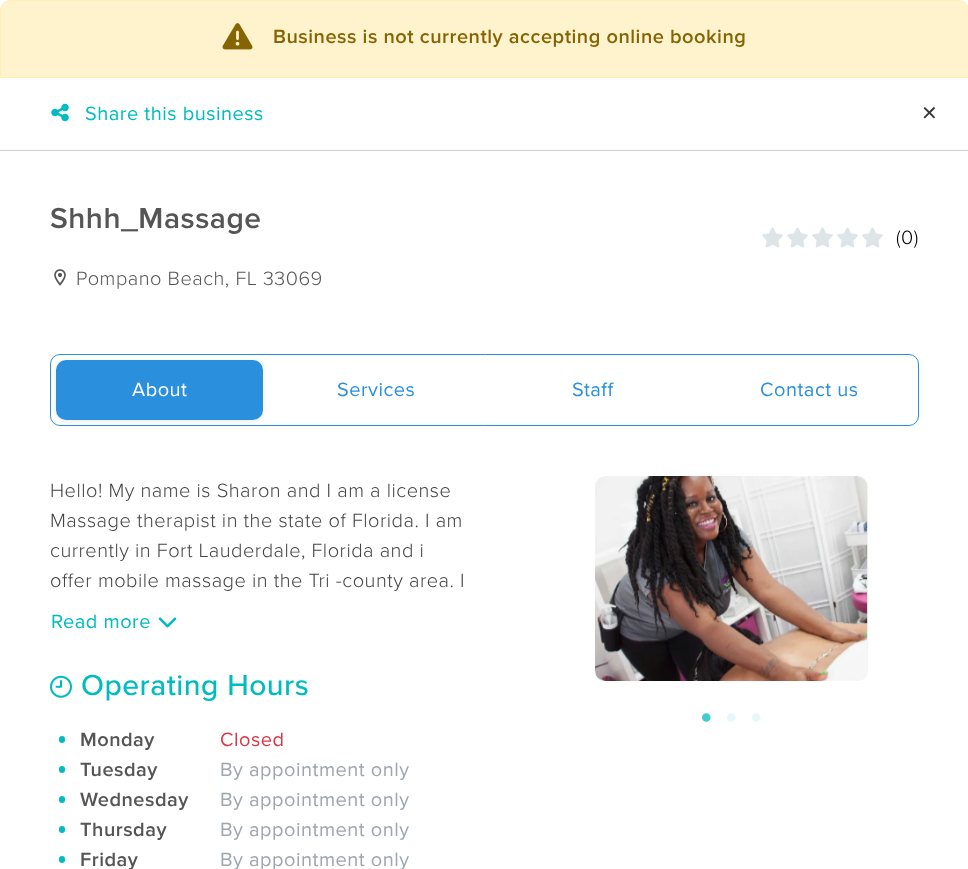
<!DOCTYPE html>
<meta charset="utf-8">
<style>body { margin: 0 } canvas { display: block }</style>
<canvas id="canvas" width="968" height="869"></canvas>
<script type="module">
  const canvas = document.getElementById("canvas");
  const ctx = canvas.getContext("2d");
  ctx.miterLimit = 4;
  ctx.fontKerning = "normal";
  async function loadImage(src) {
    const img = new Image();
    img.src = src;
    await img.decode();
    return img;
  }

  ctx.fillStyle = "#ffffff";
  ctx.fillRect(0, 0, 968, 869);
  ctx.fillStyle = "#fff3cd";
  ctx.beginPath();
  ctx.moveTo(10, 0.5);
  ctx.lineTo(959, 0.5);
  ctx.bezierCurveTo(964, 0.5, 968.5, 5, 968.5, 10);
  ctx.lineTo(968.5, 77.5);
  ctx.lineTo(0.5, 77.5);
  ctx.lineTo(0.5, 10);
  ctx.bezierCurveTo(0.5, 5, 5, 0.5, 10, 0.5);
  ctx.closePath();
  ctx.fill();
  ctx.strokeStyle = "#ffeeba";
  ctx.stroke();
  ctx.drawImage(await loadImage("img1.png"), 222, 23, 31, 27);
  ctx.letterSpacing = "0.5px";
  ctx.font = "600 20px Proxima Nova";
  ctx.fillStyle = "#856404";
  ctx.fillText("Business is not currently accepting online booking", 273, 43);
  ctx.fillStyle = "#ced4da";
  ctx.fillRect(0, 150, 968, 1);
  ctx.drawImage(await loadImage("img2.png"), 51, 103, 18, 19);
  ctx.font = "20px Proxima Nova";
  ctx.fillStyle = "#00bcc0";
  ctx.fillText("Share this business", 85, 120);
  ctx.font = "20px DejaVu Sans";
  ctx.fillStyle = "#343a40";
  ctx.fillText("✕", 921, 120);
  ctx.font = "600 30px Proxima Nova";
  ctx.fillStyle = "#555555";
  ctx.fillText("Shhh_Massage", 50, 228);
  ctx.drawImage(await loadImage("img3.png"), 54, 269, 12, 17);
  ctx.font = "300 20px Proxima Nova";
  ctx.fillText("Pompano Beach, FL 33069", 76, 285);
  ctx.drawImage(await loadImage("img4.png"), 762, 227, 121, 21);
  ctx.fillStyle = "#000000";
  ctx.fillText("(0)", 896, 244);
  ctx.beginPath();
  ctx.roundRect(50.5, 354.5, 868, 71, 9.5);
  ctx.strokeStyle = "#2a90de";
  ctx.stroke();
  ctx.fillStyle = "rgba(18, 18, 18, 0.1)";
  ctx.filter = "blur(2.5px)";
  ctx.beginPath();
  ctx.roundRect(56, 361, 207, 60, 10);
  ctx.fill();
  ctx.filter = "none";
  ctx.fillStyle = "#2a90de";
  ctx.beginPath();
  ctx.roundRect(56, 360, 207, 60, 10);
  ctx.fill();
  ctx.font = "20px Proxima Nova";
  ctx.fillStyle = "#ffffff";
  ctx.fillText("About", 132, 396);
  ctx.fillStyle = "#2a90de";
  ctx.fillText("Services", 337, 396);
  ctx.fillText("Staff", 572, 396);
  ctx.fillText("Contact us", 760, 396);
  ctx.font = "300 20px Proxima Nova";
  ctx.fillStyle = "#444444";
  ctx.fillText("Hello! My name is Sharon and I am a license", 50, 497);
  ctx.fillText("Massage therapist in the state of Florida. I am", 50, 527);
  ctx.fillText("currently in Fort Lauderdale, Florida and i", 50, 557);
  ctx.fillText("offer mobile massage in the Tri -county area. I", 50, 587);
  ctx.font = "20px Proxima Nova";
  ctx.fillStyle = "#00bcc0";
  ctx.fillText("Read more", 51, 628);
  ctx.drawImage(await loadImage("img5.png"), 158, 617, 19, 11);
  ctx.drawImage(await loadImage("img6.png"), 50, 675, 22, 23);
  ctx.font = "500 30px Proxima Nova";
  ctx.fillText("Operating Hours", 81, 695);
  ctx.beginPath();
  ctx.roundRect(59, 736, 6, 7, 3);
  ctx.fill();
  ctx.font = "600 20px Proxima Nova";
  ctx.fillStyle = "#555555";
  ctx.fillText("Monday", 80, 746);
  ctx.font = "20px Proxima Nova";
  ctx.fillStyle = "#dc3545";
  ctx.fillText("Closed", 220, 746);
  ctx.fillStyle = "#00bcc0";
  ctx.beginPath();
  ctx.roundRect(59, 766, 6, 7, 3);
  ctx.fill();
  ctx.font = "600 20px Proxima Nova";
  ctx.fillStyle = "#555555";
  ctx.fillText("Tuesday", 80, 776);
  ctx.font = "20px Proxima Nova";
  ctx.fillStyle = "#9da7ad";
  ctx.fillText("By appointment only", 220, 776);
  ctx.fillStyle = "#00bcc0";
  ctx.beginPath();
  ctx.roundRect(59, 796, 6, 7, 3);
  ctx.fill();
  ctx.font = "600 20px Proxima Nova";
  ctx.fillStyle = "#555555";
  ctx.fillText("Wednesday", 80, 806);
  ctx.font = "20px Proxima Nova";
  ctx.fillStyle = "#9da7ad";
  ctx.fillText("By appointment only", 220, 806);
  ctx.fillStyle = "#00bcc0";
  ctx.beginPath();
  ctx.roundRect(59, 826, 6, 7, 3);
  ctx.fill();
  ctx.font = "600 20px Proxima Nova";
  ctx.fillStyle = "#555555";
  ctx.fillText("Thursday", 80, 836);
  ctx.font = "20px Proxima Nova";
  ctx.fillStyle = "#9da7ad";
  ctx.fillText("By appointment only", 220, 836);
  ctx.fillStyle = "#00bcc0";
  ctx.beginPath();
  ctx.roundRect(59, 856, 6, 7, 3);
  ctx.fill();
  ctx.font = "600 20px Proxima Nova";
  ctx.fillStyle = "#555555";
  ctx.fillText("Friday", 80, 866);
  ctx.font = "20px Proxima Nova";
  ctx.fillStyle = "#9da7ad";
  ctx.fillText("By appointment only", 220, 866);
  ctx.save();
  ctx.beginPath();
  ctx.roundRect(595, 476, 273, 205, 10);
  ctx.clip();
  ctx.fillStyle = "rgba(3, 70, 74, 0.1)";
  ctx.filter = "blur(7.5px)";
  ctx.beginPath();
  ctx.roundRect(595, 479, 273, 205, 10);
  ctx.fill();
  ctx.filter = "none";
  ctx.restore();
  ctx.drawImage(await loadImage("img7.png"), 595, 476, 273, 205);
  ctx.drawImage(await loadImage("img8.png"), 702, 713, 9, 9);
  ctx.drawImage(await loadImage("img9.png"), 727, 713, 9, 9);
  ctx.drawImage(await loadImage("img9.png"), 752, 713, 9, 9);
</script>
